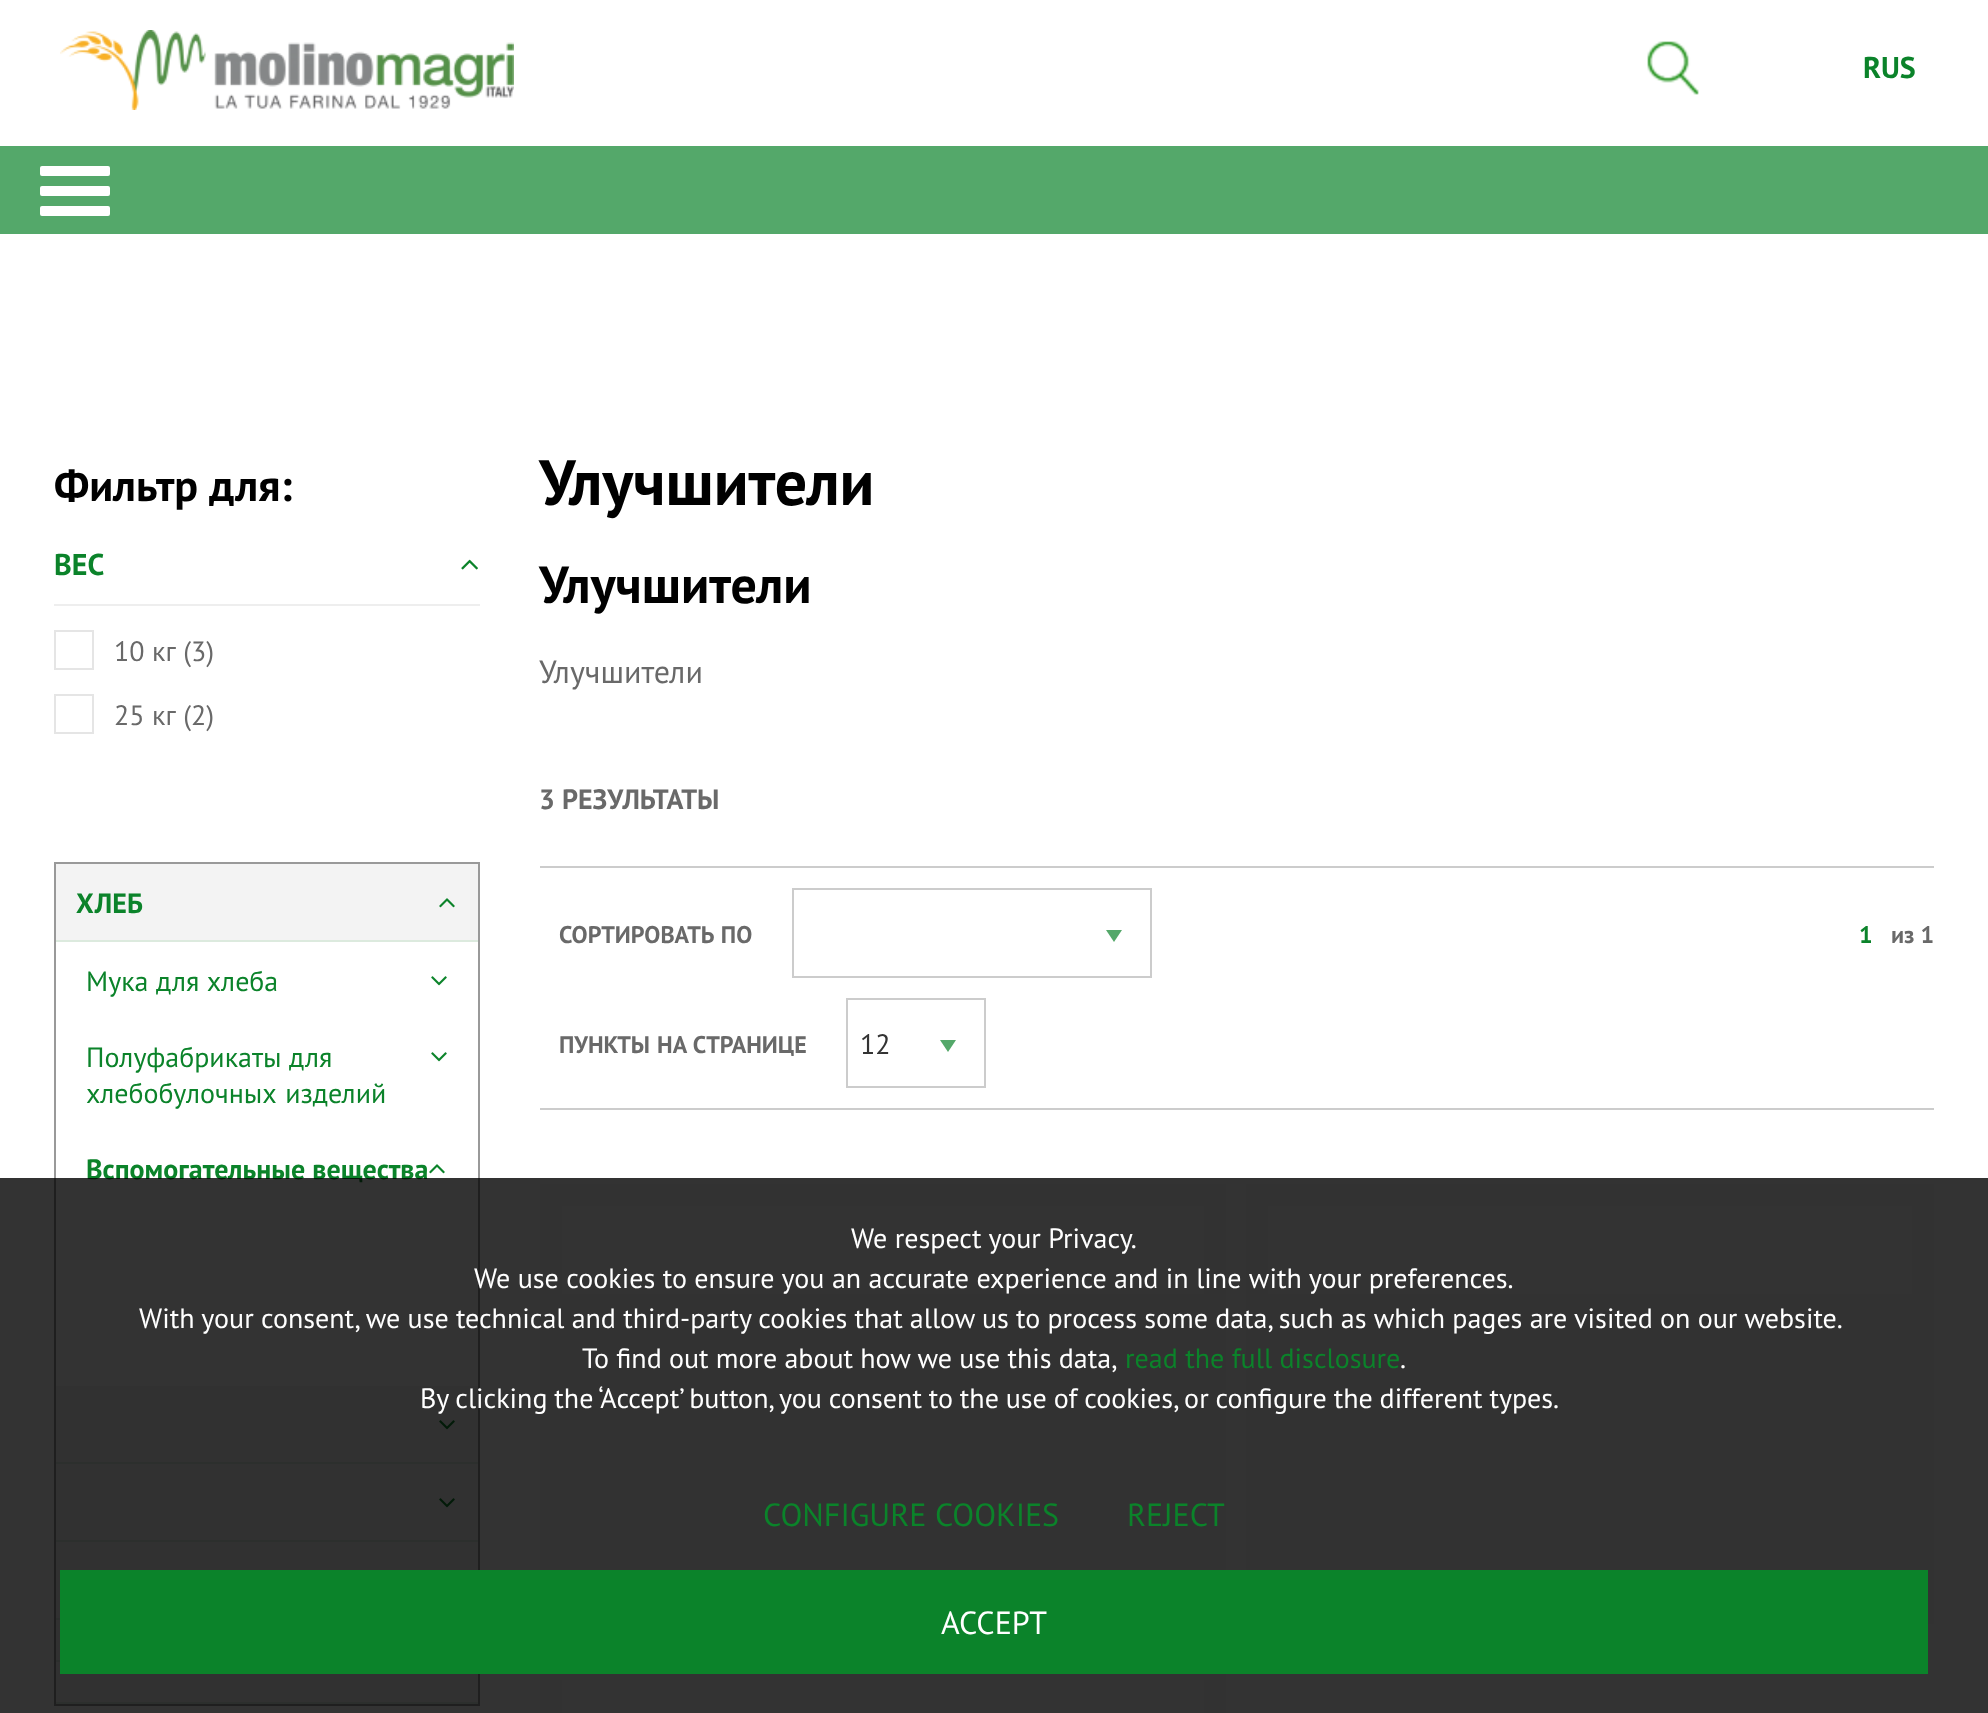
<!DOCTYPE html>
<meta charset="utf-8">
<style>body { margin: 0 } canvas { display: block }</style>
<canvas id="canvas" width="1988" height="1713"></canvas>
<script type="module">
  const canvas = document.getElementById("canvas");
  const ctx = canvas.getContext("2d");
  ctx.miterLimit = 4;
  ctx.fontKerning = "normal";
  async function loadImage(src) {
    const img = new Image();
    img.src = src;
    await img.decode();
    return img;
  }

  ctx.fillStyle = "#ffffff";
  ctx.fillRect(0, 0, 1988, 1713);
  ctx.drawImage(await loadImage("img1.png"), 60, 30, 454, 80);
  ctx.drawImage(await loadImage("img2.png"), 1647, 41, 52, 54);
  ctx.font = "bold 30px PT Sans";
  ctx.fillStyle = "#0b832a";
  ctx.fillText("RUS", 1863, 78);
  ctx.fillStyle = "#54a86a";
  ctx.fillRect(0, 146, 1988, 88);
  ctx.fillStyle = "#ffffff";
  ctx.beginPath();
  ctx.roundRect(40, 186, 70, 10, 2);
  ctx.fill();
  ctx.beginPath();
  ctx.roundRect(40, 166, 70, 10, 2);
  ctx.fill();
  ctx.beginPath();
  ctx.roundRect(40, 206, 70, 10, 2);
  ctx.fill();
  ctx.font = "bold 44px PT Sans";
  ctx.fillStyle = "#000000";
  ctx.fillText("Фильтр для:", 54, 501);
  ctx.font = "bold 30px PT Sans";
  ctx.fillStyle = "#0b832a";
  ctx.fillText("BEC", 54, 575);
  ctx.drawImage(await loadImage("img3.png"), 461, 559, 17, 11);
  ctx.fillStyle = "#eeeeee";
  ctx.fillRect(54, 604, 426, 2);
  ctx.strokeStyle = "#e5e5e5";
  ctx.lineWidth = 2;
  ctx.strokeRect(55, 631, 38, 38);
  ctx.font = "28px PT Sans";
  ctx.fillStyle = "#696969";
  ctx.fillText("10 кг (3)", 114, 661);
  ctx.strokeRect(55, 695, 38, 38);
  ctx.fillText("25 кг (2)", 114, 725);
  ctx.strokeStyle = "#999999";
  ctx.strokeRect(55, 863, 424, 842);
  ctx.fillStyle = "#f3f3f3";
  ctx.fillRect(56, 864, 422, 76);
  ctx.fillStyle = "#dceade";
  ctx.fillRect(56, 940, 422, 2);
  ctx.font = "bold 28px PT Sans";
  ctx.fillStyle = "#0b832a";
  ctx.fillText("ХЛЕБ", 76, 913);
  ctx.drawImage(await loadImage("img4.png"), 439, 898, 16, 10);
  ctx.font = "28px PT Sans";
  ctx.fillText("Мука для хлеба", 86, 991);
  ctx.drawImage(await loadImage("img5.png"), 431, 976, 16, 10);
  ctx.fillText("Полуфабрикаты для", 86, 1067);
  ctx.wordSpacing = "1px";
  ctx.fillText("хлебобулочных изделий", 86, 1103);
  ctx.drawImage(await loadImage("img5.png"), 431, 1052, 16, 10);
  ctx.wordSpacing = "0px";
  ctx.font = "bold 28px PT Sans";
  ctx.fillText("Вспомогательные вещества", 86, 1179);
  ctx.drawImage(await loadImage("img6.png"), 429, 1164, 16, 10);
  ctx.fillStyle = "#f3f3f3";
  ctx.fillRect(56, 1386, 422, 76);
  ctx.fillStyle = "#dceade";
  ctx.fillRect(56, 1462, 422, 2);
  ctx.drawImage(await loadImage("img7.png"), 439, 1420, 16, 10);
  ctx.fillStyle = "#f3f3f3";
  ctx.fillRect(56, 1464, 422, 76);
  ctx.fillStyle = "#dceade";
  ctx.fillRect(56, 1540, 422, 2);
  ctx.drawImage(await loadImage("img7.png"), 439, 1498, 16, 10);
  ctx.fillStyle = "#f3f3f3";
  ctx.fillRect(56, 1542, 422, 76);
  ctx.fillStyle = "#dceade";
  ctx.fillRect(56, 1618, 4, 2);
  ctx.fillStyle = "#f3f3f3";
  ctx.fillRect(56, 1620, 4, 40);
  ctx.fillStyle = "#dceade";
  ctx.fillRect(56, 1660, 4, 2);
  ctx.fillStyle = "#f3f3f3";
  ctx.fillRect(56, 1662, 422, 40);
  ctx.fillStyle = "#dceade";
  ctx.fillRect(56, 1702, 422, 2);
  ctx.font = "bold 64px PT Sans";
  ctx.fillStyle = "#000000";
  ctx.fillText("Улучшители", 539, 505);
  ctx.font = "bold 52px PT Sans";
  ctx.fillText("Улучшители", 539, 603);
  ctx.font = "32px PT Sans";
  ctx.fillStyle = "#696969";
  ctx.fillText("Улучшители", 539, 683);
  ctx.font = "bold 28px PT Sans";
  ctx.fillText("3 РЕЗУЛЬТАТЫ", 539, 809);
  ctx.fillStyle = "#cccccc";
  ctx.fillRect(540, 866, 1394, 2);
  ctx.fillRect(540, 1108, 1394, 2);
  ctx.wordSpacing = "1px";
  ctx.font = "bold 24px PT Sans";
  ctx.fillStyle = "#696969";
  ctx.fillText("СОРТИРОВАТЬ ПО", 559, 943);
  ctx.strokeStyle = "#cccccc";
  ctx.strokeRect(793, 889, 358, 88);
  ctx.fillStyle = "#54a86a";
  ctx.beginPath();
  ctx.moveTo(1106, 930);
  ctx.lineTo(1122, 930);
  ctx.lineTo(1114, 942);
  ctx.closePath();
  ctx.fill();
  ctx.fillStyle = "#696969";
  ctx.fillText("ПУНКТЫ НА СТРАНИЦЕ", 559, 1053);
  ctx.strokeRect(847, 999, 138, 88);
  ctx.wordSpacing = "0px";
  ctx.font = "28px PT Sans";
  ctx.fillStyle = "#333333";
  ctx.fillText("12", 860, 1054);
  ctx.fillStyle = "#54a86a";
  ctx.beginPath();
  ctx.moveTo(940, 1040);
  ctx.lineTo(956, 1040);
  ctx.lineTo(948, 1052);
  ctx.closePath();
  ctx.fill();
  ctx.font = "bold 24px PT Sans";
  ctx.fillStyle = "#0b832a";
  ctx.fillText("1", 1859, 943);
  ctx.fillStyle = "#696969";
  ctx.fillText("из 1", 1891, 943);
  ctx.fillStyle = "#f7f7f7";
  ctx.fillRect(540, 1184, 686, 386);
  ctx.fillStyle = "#ffffff";
  ctx.fillRect(562, 1206, 642, 88);
  ctx.fillStyle = "#f7f7f7";
  ctx.fillRect(1246, 1184, 688, 440);
  ctx.fillStyle = "#ffffff";
  ctx.fillRect(1268, 1206, 644, 88);
  ctx.fillStyle = "#f7f7f7";
  ctx.fillRect(540, 1674, 686, 39);
  ctx.fillStyle = "#ffffff";
  ctx.fillRect(562, 1680, 642, 33);
  ctx.fillStyle = "rgba(0, 0, 0, 0.8)";
  ctx.fillRect(0, 1178, 1988, 535);
  ctx.font = "28px PT Sans";
  ctx.fillStyle = "#ffffff";
  ctx.fillText("We respect your Privacy.", 851, 1248);
  ctx.fillText("We use cookies to ensure you an accurate experience and in line with your preferences.", 474, 1288);
  ctx.wordSpacing = "-0.25px";
  ctx.fillText("With your consent, we use technical and third-party cookies that allow us to process some data, such as which pages are visited on our website.", 139, 1328);
  ctx.fillText("To find out more about how we use this data,", 582, 1368);
  ctx.wordSpacing = "0px";
  ctx.fillStyle = "#0b832a";
  ctx.fillText("read the full disclosure", 1125, 1368);
  ctx.fillStyle = "#ffffff";
  ctx.fillText(".", 1400, 1368);
  ctx.wordSpacing = "-0.6px";
  ctx.fillText("By clicking the ‘Accept’ button, you consent to the use of cookies, or configure the different types.", 420, 1408);
  ctx.wordSpacing = "0px";
  ctx.font = "32px PT Sans";
  ctx.fillStyle = "#0b832a";
  ctx.fillText("CONFIGURE COOKIES", 763, 1526);
  ctx.fillText("REJECT", 1127, 1526);
  ctx.fillRect(60, 1570, 1868, 104);
  ctx.fillStyle = "#ffffff";
  ctx.fillText("ACCEPT", 941, 1634);
</script>
